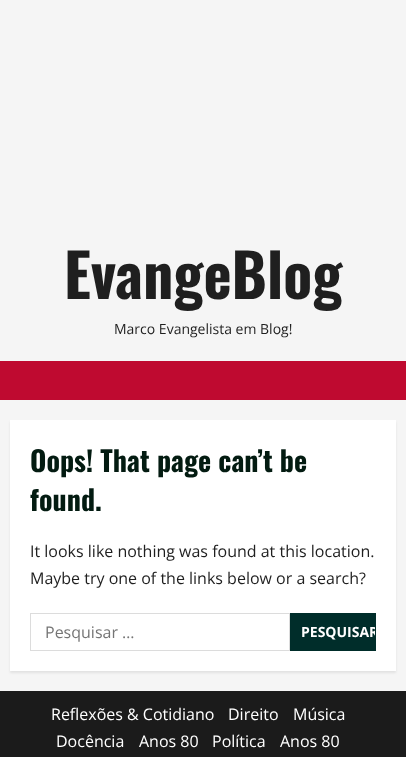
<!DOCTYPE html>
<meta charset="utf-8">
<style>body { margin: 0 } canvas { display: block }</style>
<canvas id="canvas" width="406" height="757"></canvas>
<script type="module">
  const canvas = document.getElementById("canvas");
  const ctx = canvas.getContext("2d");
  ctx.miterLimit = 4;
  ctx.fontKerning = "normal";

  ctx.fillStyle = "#f5f5f5";
  ctx.fillRect(0, 0, 406, 757);
  ctx.font = "bold 60px Oswald";
  ctx.fillStyle = "#1f1f1f";
  ctx.fillText("EvangeBlog", 64, 299);
  ctx.font = "14px Open Sans";
  ctx.fillText("Marco Evangelista em Blog!", 114, 334);
  ctx.fillStyle = "#bf0a30";
  ctx.fillRect(0, 361, 406, 39);
  ctx.fillStyle = "rgba(0, 0, 0, 0.08)";
  ctx.filter = "blur(1px)";
  ctx.beginPath();
  ctx.rect(10, 422, 386, 251);
  ctx.fill();
  ctx.filter = "none";
  ctx.fillStyle = "#ffffff";
  ctx.fillRect(10, 420, 386, 251);
  ctx.font = "bold 28px Oswald";
  ctx.fillStyle = "#031b11";
  ctx.fillText("Oops! That page can’t be", 30, 472);
  ctx.fillText("found.", 30, 511);
  ctx.font = "16px Open Sans";
  ctx.fillStyle = "#1f1f1f";
  ctx.fillText("It looks like nothing was found at this location.", 30, 557);
  ctx.fillText("Maybe try one of the links below or a search?", 30, 584);
  ctx.strokeStyle = "#dcdcdc";
  ctx.strokeRect(30.5, 613.5, 259, 37);
  ctx.fillStyle = "#757575";
  ctx.fillText("Pesquisar …", 45, 638);
  ctx.fillStyle = "#002d2a";
  ctx.fillRect(290, 613, 86, 38);
  ctx.save();
  ctx.beginPath();
  ctx.rect(291, 614, 84, 36);
  ctx.clip();
  ctx.font = "bold 14px Open Sans";
  ctx.fillStyle = "#ffffff";
  ctx.fillText("PESQUISAR", 301, 637);
  ctx.restore();
  ctx.fillStyle = "#1b1b1b";
  ctx.fillRect(0, 691, 406, 66);
  ctx.fillStyle = "#ffffff";
  ctx.fillText("Reflexões & Cotidiano", 51, 720);
  ctx.fillText("Direito", 228, 720);
  ctx.fillText("Música", 293, 720);
  ctx.fillText("Docência", 56, 747);
  ctx.fillText("Anos 80", 139, 747);
  ctx.fillText("Política", 212, 747);
  ctx.fillText("Anos 80", 280, 747);
</script>
